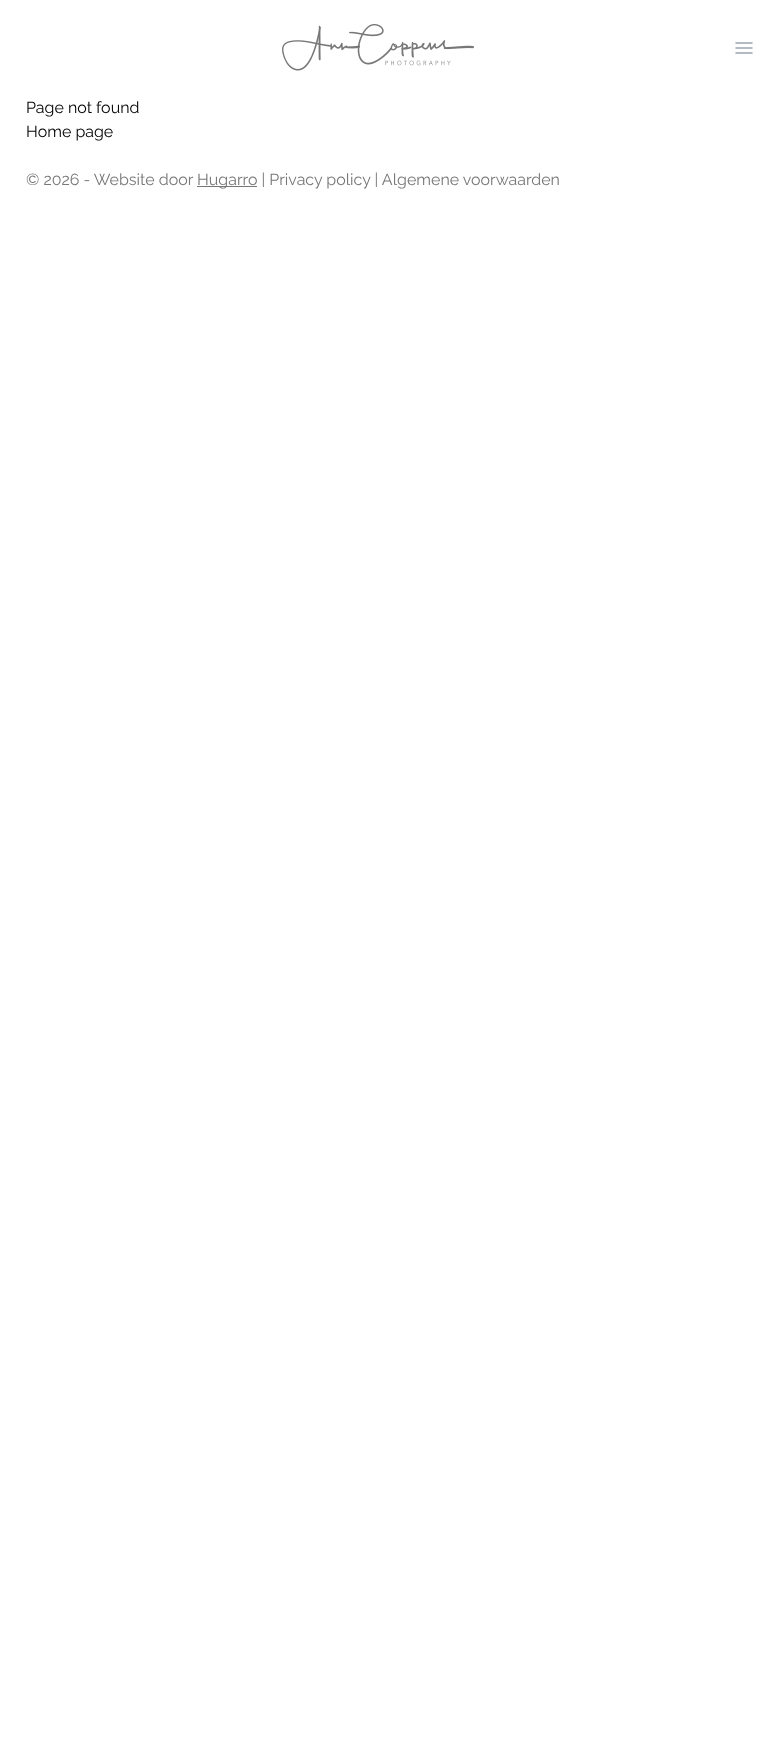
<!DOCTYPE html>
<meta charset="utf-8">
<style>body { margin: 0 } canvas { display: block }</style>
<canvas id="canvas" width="780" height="1757"></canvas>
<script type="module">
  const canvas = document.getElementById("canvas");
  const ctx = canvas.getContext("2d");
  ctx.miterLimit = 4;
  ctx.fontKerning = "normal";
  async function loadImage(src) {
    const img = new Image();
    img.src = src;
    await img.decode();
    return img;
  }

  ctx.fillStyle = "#ffffff";
  ctx.fillRect(0, 0, 780, 1757);
  ctx.drawImage(await loadImage("img1.png"), 282, 24, 192, 47);
  ctx.beginPath();
  ctx.moveTo(736, 43);
  ctx.lineTo(752, 43);
  ctx.moveTo(736, 48);
  ctx.lineTo(752, 48);
  ctx.moveTo(736, 53);
  ctx.lineTo(752, 53);
  ctx.strokeStyle = "#9ca3af";
  ctx.lineWidth = 1.5;
  ctx.lineCap = "round";
  ctx.lineJoin = "round";
  ctx.stroke();
  ctx.font = "16px Raleway";
  ctx.fillStyle = "#000000";
  ctx.fillText("Page not found", 26, 113);
  ctx.fillText("Home page", 26, 137);
  ctx.fillStyle = "#777777";
  ctx.fillText("© 2026 - Website door", 26, 185);
  ctx.fillRect(197, 186, 60, 1);
  ctx.fillText("Hugarro | Privacy policy | Algemene voorwaarden", 197, 185);
</script>
